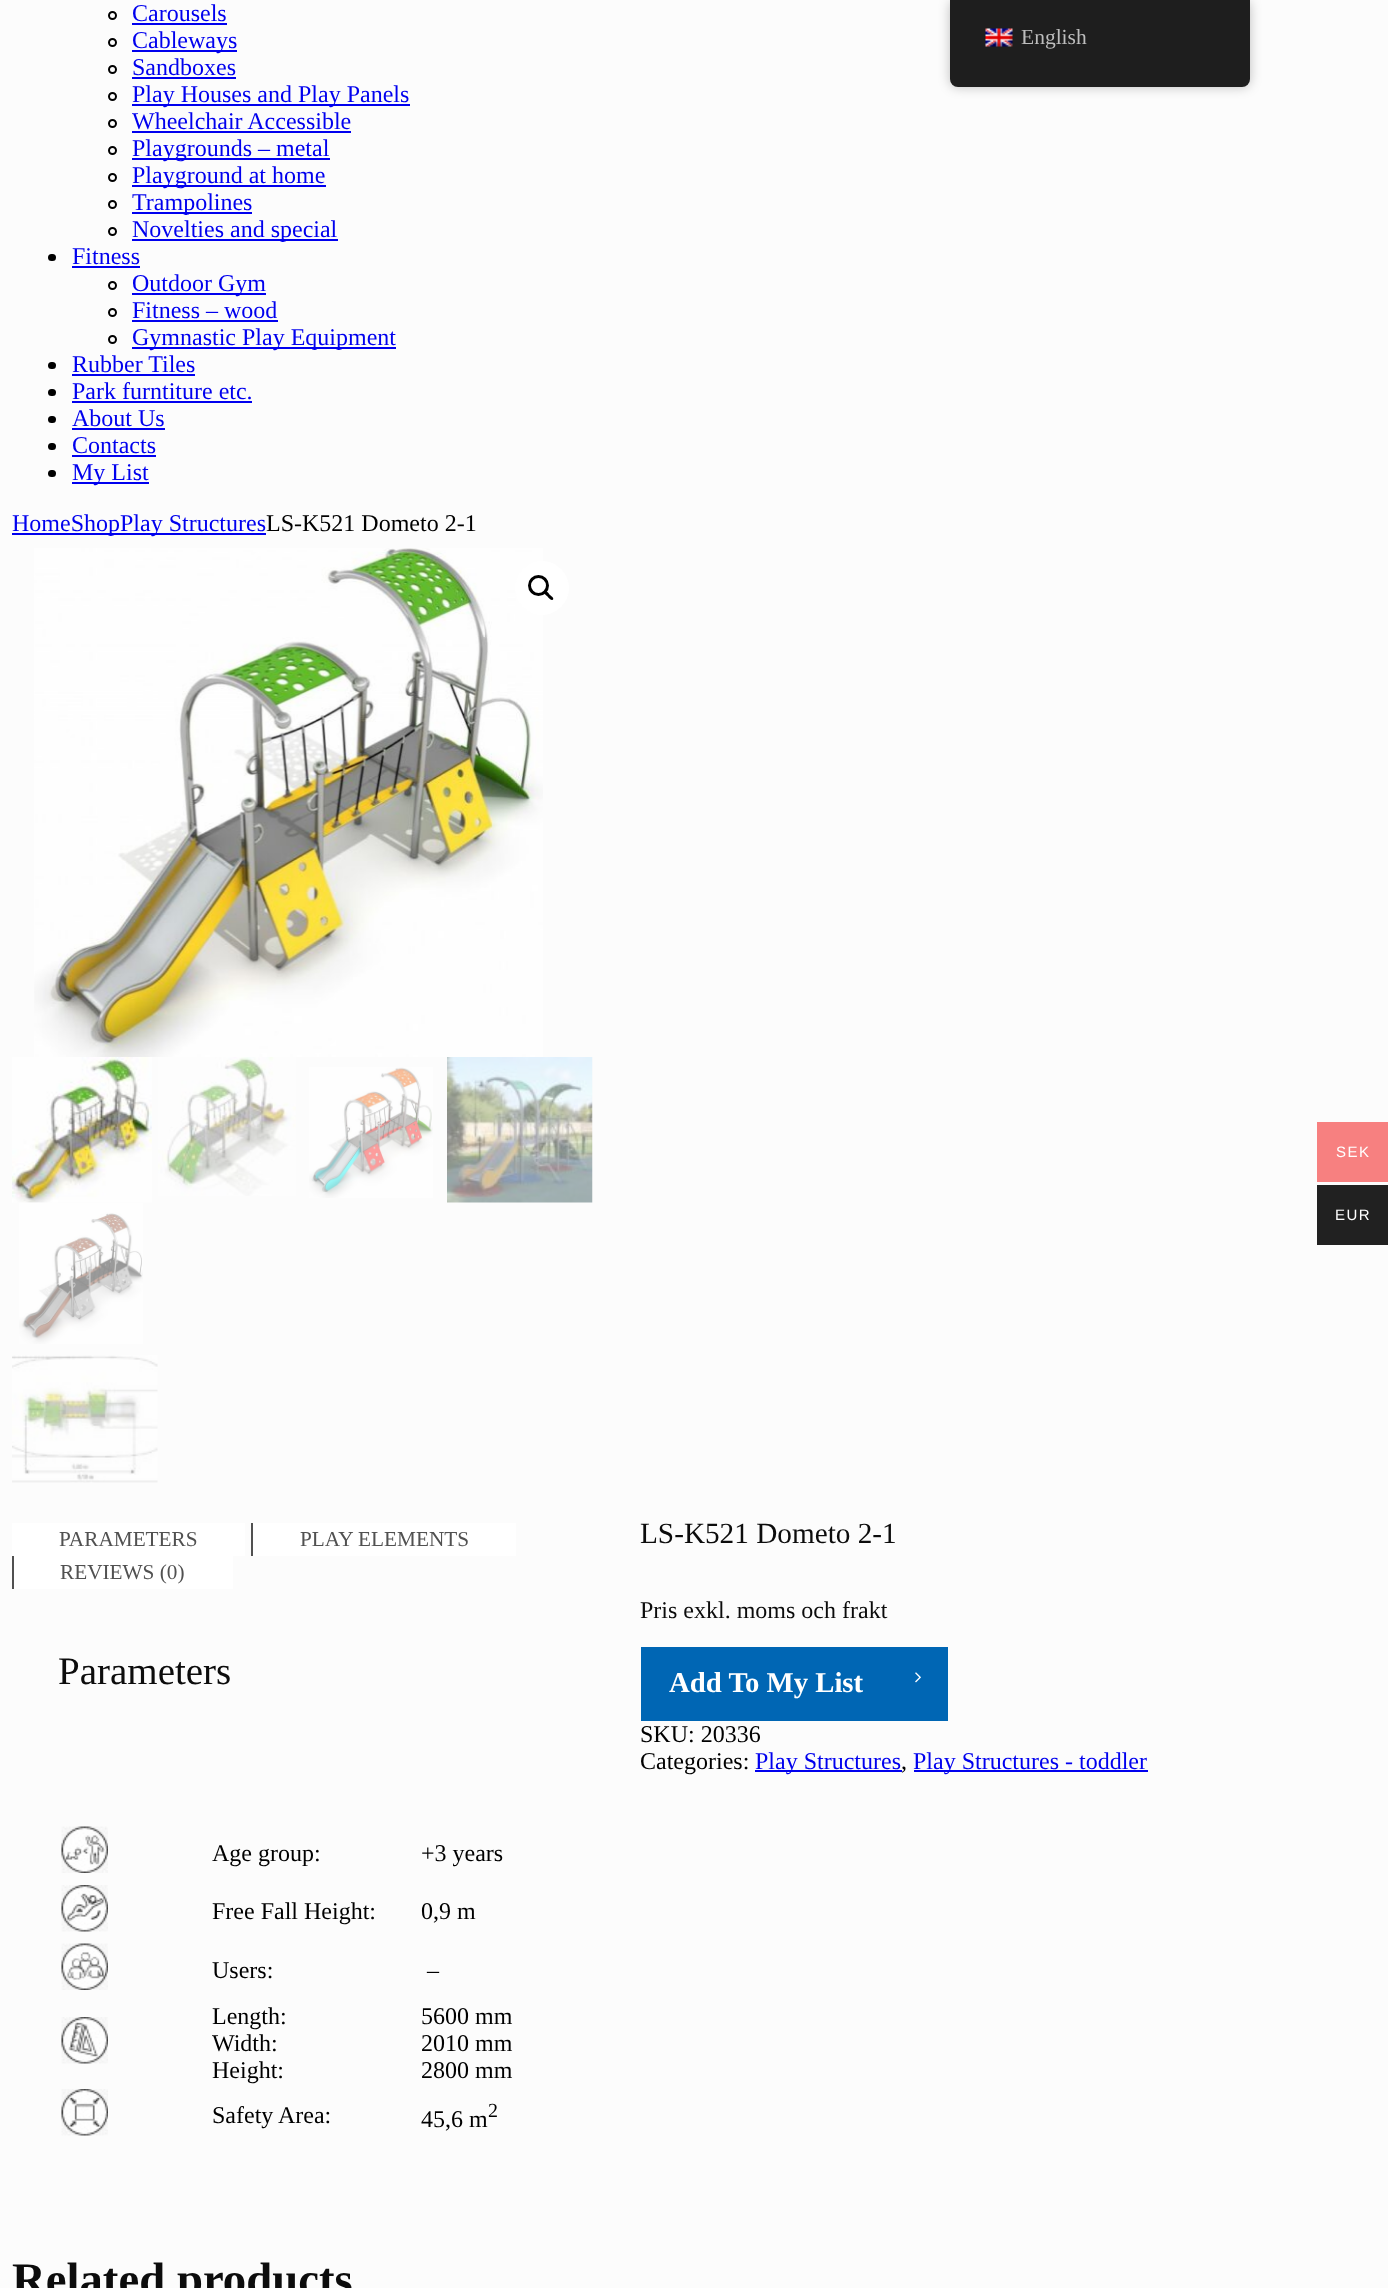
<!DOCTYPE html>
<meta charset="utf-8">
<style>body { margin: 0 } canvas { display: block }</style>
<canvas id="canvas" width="1388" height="2288"></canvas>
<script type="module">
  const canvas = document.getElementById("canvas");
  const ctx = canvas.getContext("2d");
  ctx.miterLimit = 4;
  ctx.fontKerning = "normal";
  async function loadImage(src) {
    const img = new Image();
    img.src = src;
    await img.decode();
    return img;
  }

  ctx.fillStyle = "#fcfcfc";
  ctx.fillRect(0, 0, 1388, 2288);
  ctx.beginPath();
  ctx.arc(112.5, 15.5, 3.5, 0, Math.PI * 2);
  ctx.strokeStyle = "#000000";
  ctx.lineWidth = 2;
  ctx.stroke();
  ctx.font = "24px Liberation Serif";
  ctx.fillStyle = "#0000ee";
  ctx.fillText("Carousels", 132, 21);
  ctx.fillRect(132, 23, 95, 2);
  ctx.beginPath();
  ctx.arc(112.5, 42.5, 3.5, 0, Math.PI * 2);
  ctx.stroke();
  ctx.fillRect(132, 50, 105, 2);
  ctx.fillText("Cableways", 132, 48);
  ctx.beginPath();
  ctx.arc(112.5, 69.5, 3.5, 0, Math.PI * 2);
  ctx.stroke();
  ctx.fillText("Sandboxes", 132, 75);
  ctx.fillRect(132, 77, 104, 2);
  ctx.beginPath();
  ctx.arc(112.5, 96.5, 3.5, 0, Math.PI * 2);
  ctx.stroke();
  ctx.fillRect(132, 104, 278, 2);
  ctx.fillText("Play Houses and Play Panels", 132, 102);
  ctx.beginPath();
  ctx.arc(112.5, 123.5, 3.5, 0, Math.PI * 2);
  ctx.stroke();
  ctx.fillText("Wheelchair Accessible", 132, 129);
  ctx.fillRect(132, 131, 219, 2);
  ctx.beginPath();
  ctx.arc(112.5, 150.5, 3.5, 0, Math.PI * 2);
  ctx.stroke();
  ctx.fillRect(132, 158, 198, 2);
  ctx.fillText("Playgrounds – metal", 132, 156);
  ctx.beginPath();
  ctx.arc(112.5, 177.5, 3.5, 0, Math.PI * 2);
  ctx.stroke();
  ctx.fillRect(132, 185, 194, 2);
  ctx.fillText("Playground at home", 132, 183);
  ctx.beginPath();
  ctx.arc(112.5, 204.5, 3.5, 0, Math.PI * 2);
  ctx.stroke();
  ctx.fillRect(132, 212, 120, 2);
  ctx.fillText("Trampolines", 132, 210);
  ctx.beginPath();
  ctx.arc(112.5, 231.5, 3.5, 0, Math.PI * 2);
  ctx.stroke();
  ctx.fillRect(132, 239, 206, 2);
  ctx.fillText("Novelties and special", 132, 237);
  ctx.fillStyle = "#000000";
  ctx.beginPath();
  ctx.roundRect(48, 254, 8, 7, 3.5);
  ctx.fill();
  ctx.fillStyle = "#0000ee";
  ctx.fillText("Fitness", 72, 264);
  ctx.fillRect(72, 266, 68, 2);
  ctx.beginPath();
  ctx.arc(112.5, 285.5, 3.5, 0, Math.PI * 2);
  ctx.stroke();
  ctx.fillRect(132, 293, 134, 2);
  ctx.fillText("Outdoor Gym", 132, 291);
  ctx.beginPath();
  ctx.arc(112.5, 312.5, 3.5, 0, Math.PI * 2);
  ctx.stroke();
  ctx.fillText("Fitness – wood", 132, 318);
  ctx.fillRect(132, 320, 146, 2);
  ctx.beginPath();
  ctx.arc(112.5, 339.5, 3.5, 0, Math.PI * 2);
  ctx.stroke();
  ctx.fillRect(132, 347, 264, 2);
  ctx.fillText("Gymnastic Play Equipment", 132, 345);
  ctx.fillStyle = "#000000";
  ctx.beginPath();
  ctx.roundRect(48, 362, 8, 7, 3.5);
  ctx.fill();
  ctx.fillStyle = "#0000ee";
  ctx.fillText("Rubber Tiles", 72, 372);
  ctx.fillRect(72, 374, 123, 2);
  ctx.fillStyle = "#000000";
  ctx.beginPath();
  ctx.roundRect(48, 389, 8, 7, 3.5);
  ctx.fill();
  ctx.fillStyle = "#0000ee";
  ctx.fillText("Park furntiture etc.", 72, 399);
  ctx.fillRect(72, 401, 180, 2);
  ctx.fillStyle = "#000000";
  ctx.beginPath();
  ctx.roundRect(48, 416, 8, 7, 3.5);
  ctx.fill();
  ctx.fillStyle = "#0000ee";
  ctx.fillText("About Us", 72, 426);
  ctx.fillRect(72, 428, 93, 2);
  ctx.fillStyle = "#000000";
  ctx.beginPath();
  ctx.roundRect(48, 443, 8, 7, 3.5);
  ctx.fill();
  ctx.fillStyle = "#0000ee";
  ctx.fillText("Contacts", 72, 453);
  ctx.fillRect(72, 455, 84, 2);
  ctx.fillStyle = "#000000";
  ctx.beginPath();
  ctx.roundRect(48, 470, 8, 7, 3.5);
  ctx.fill();
  ctx.fillStyle = "#0000ee";
  ctx.fillRect(72, 482, 77, 2);
  ctx.fillText("My List", 72, 480);
  ctx.fillRect(12, 533, 254, 2);
  ctx.fillText("HomeShopPlay Structures", 12, 531);
  ctx.fillStyle = "#000000";
  ctx.fillText("LS-K521 Dometo 2-1", 266, 531);
  ctx.drawImage(await loadImage("img1.png"), 34, 548, 509, 509);
  ctx.fillStyle = "#ffffff";
  ctx.beginPath();
  ctx.arc(542, 588, 27, 0, Math.PI * 2);
  ctx.fill();
  ctx.beginPath();
  ctx.arc(538.5, 585.5, 9, 0, Math.PI * 2);
  ctx.lineWidth = 3;
  ctx.stroke();
  ctx.fillStyle = "#000000";
  ctx.beginPath();
  ctx.moveTo(544.5, 591.5);
  ctx.bezierCurveTo(546, 589.5, 549, 593.5, 549.5, 594.5);
  ctx.bezierCurveTo(550.5, 595.5, 554.5, 598, 553, 599.5);
  ctx.bezierCurveTo(551, 601.5, 548.5, 597.5, 547.5, 596.5);
  ctx.bezierCurveTo(546.5, 595.5, 542.5, 593, 544.5, 591.5);
  ctx.closePath();
  ctx.fill();
  ctx.drawImage(await loadImage("img2.png"), 12, 1057, 140, 146);
  ctx.drawImage(await loadImage("img3.png"), 158, 1057, 138, 139);
  ctx.drawImage(await loadImage("img4.png"), 309, 1067, 124, 131);
  ctx.drawImage(await loadImage("img5.png"), 447, 1057, 146, 146);
  ctx.drawImage(await loadImage("img6.png"), 19, 1202, 124, 142);
  ctx.drawImage(await loadImage("img7.png"), 12, 1355, 146, 128);
  ctx.fillStyle = "#ffffff";
  ctx.fillRect(12, 1523, 233, 33);
  ctx.font = "21.25px Liberation Serif";
  ctx.fillStyle = "#515151";
  ctx.fillText("PARAMETERS", 59, 1546);
  ctx.fillStyle = "#ffffff";
  ctx.fillRect(253, 1523, 263, 33);
  ctx.fillStyle = "#515151";
  ctx.fillRect(251, 1523, 2, 33);
  ctx.fillText("PLAY ELEMENTS", 300, 1546);
  ctx.fillStyle = "#ffffff";
  ctx.fillRect(14, 1556, 219, 33);
  ctx.fillStyle = "#515151";
  ctx.fillRect(12, 1556, 2, 33);
  ctx.fillText("REVIEWS (0)", 60, 1579);
  ctx.font = "39px Liberation Serif";
  ctx.fillStyle = "#0c0c0c";
  ctx.fillText("Parameters", 58, 1684);
  ctx.drawImage(await loadImage("img8.png"), 61, 1826, 47, 47);
  ctx.font = "24px Liberation Serif";
  ctx.fillStyle = "#000000";
  ctx.fillText("Age group:", 212, 1861);
  ctx.fillText("+3 years", 421, 1861);
  ctx.drawImage(await loadImage("img9.png"), 61, 1885, 47, 47);
  ctx.fillText("Free Fall Height:", 212, 1919);
  ctx.fillText("0,9 m", 421, 1919);
  ctx.drawImage(await loadImage("img10.png"), 61, 1943, 47, 47);
  ctx.fillText("Users:", 212, 1978);
  ctx.fillText("–", 427, 1978);
  ctx.drawImage(await loadImage("img11.png"), 61, 2017, 47, 47);
  ctx.fillText("Length:", 212, 2024);
  ctx.fillText("Width:", 212, 2051);
  ctx.fillText("Height:", 212, 2078);
  ctx.fillText("5600 mm", 421, 2024);
  ctx.fillText("2010 mm", 421, 2051);
  ctx.fillText("2800 mm", 421, 2078);
  ctx.drawImage(await loadImage("img12.png"), 61, 2089, 47, 47);
  ctx.fillText("Safety Area:", 212, 2123);
  ctx.fillText("45,6 m", 421, 2127);
  ctx.font = "20px Liberation Serif";
  ctx.fillText("2", 488, 2117);
  ctx.font = "29.25px Liberation Serif";
  ctx.fillStyle = "#0c0c0c";
  ctx.fillText("LS-K521 Dometo 2-1", 640, 1543);
  ctx.font = "24px Liberation Serif";
  ctx.fillText("Pris exkl. moms och frakt", 640, 1618);
  ctx.fillStyle = "#0066b4";
  ctx.fillRect(641, 1647, 307, 74);
  ctx.font = "bold 28.75px Liberation Serif";
  ctx.fillStyle = "#ffffff";
  ctx.fillText("Add To My List", 669, 1692);
  ctx.drawImage(await loadImage("img13.png"), 915, 1672, 6, 11);
  ctx.font = "24px Liberation Serif";
  ctx.fillStyle = "#000000";
  ctx.fillText("SKU: 20336", 640, 1742);
  ctx.fillText("Categories:", 640, 1769);
  ctx.fillStyle = "#0000ee";
  ctx.fillRect(755, 1770, 147, 2);
  ctx.fillText("Play Structures", 755, 1769);
  ctx.fillStyle = "#000000";
  ctx.fillText(",", 901, 1769);
  ctx.fillStyle = "#0000ee";
  ctx.fillRect(914, 1770, 234, 2);
  ctx.fillText("Play Structures - toddler", 913, 1769);
  ctx.font = "bold 46.75px Liberation Serif";
  ctx.fillStyle = "#0c0c0c";
  ctx.fillText("Related products", 12, 2295);
  ctx.fillStyle = "rgba(0, 0, 0, 0.25)";
  ctx.filter = "blur(6px)";
  ctx.beginPath();
  ctx.roundRect(950, 0, 300, 87, 8);
  ctx.fill();
  ctx.filter = "none";
  ctx.fillStyle = "#1e1e1e";
  ctx.beginPath();
  ctx.roundRect(950, 0, 300, 87, [0, 0, 8, 8]);
  ctx.fill();
  ctx.drawImage(await loadImage("img14.png"), 985, 28, 28, 19);
  ctx.font = "21.5px Liberation Serif";
  ctx.fillStyle = "#bdbdbd";
  ctx.fillText("English", 1021, 44);
  ctx.fillStyle = "#f78080";
  ctx.fillRect(1317, 1122, 71, 60);
  ctx.letterSpacing = "1.5px";
  ctx.font = "15px Liberation Sans";
  ctx.fillStyle = "#ffffff";
  ctx.fillText("SEK", 1336, 1157);
  ctx.fillStyle = "#212121";
  ctx.fillRect(1317, 1185, 71, 60);
  ctx.fillStyle = "#ffffff";
  ctx.fillText("EUR", 1335, 1220);
</script>
